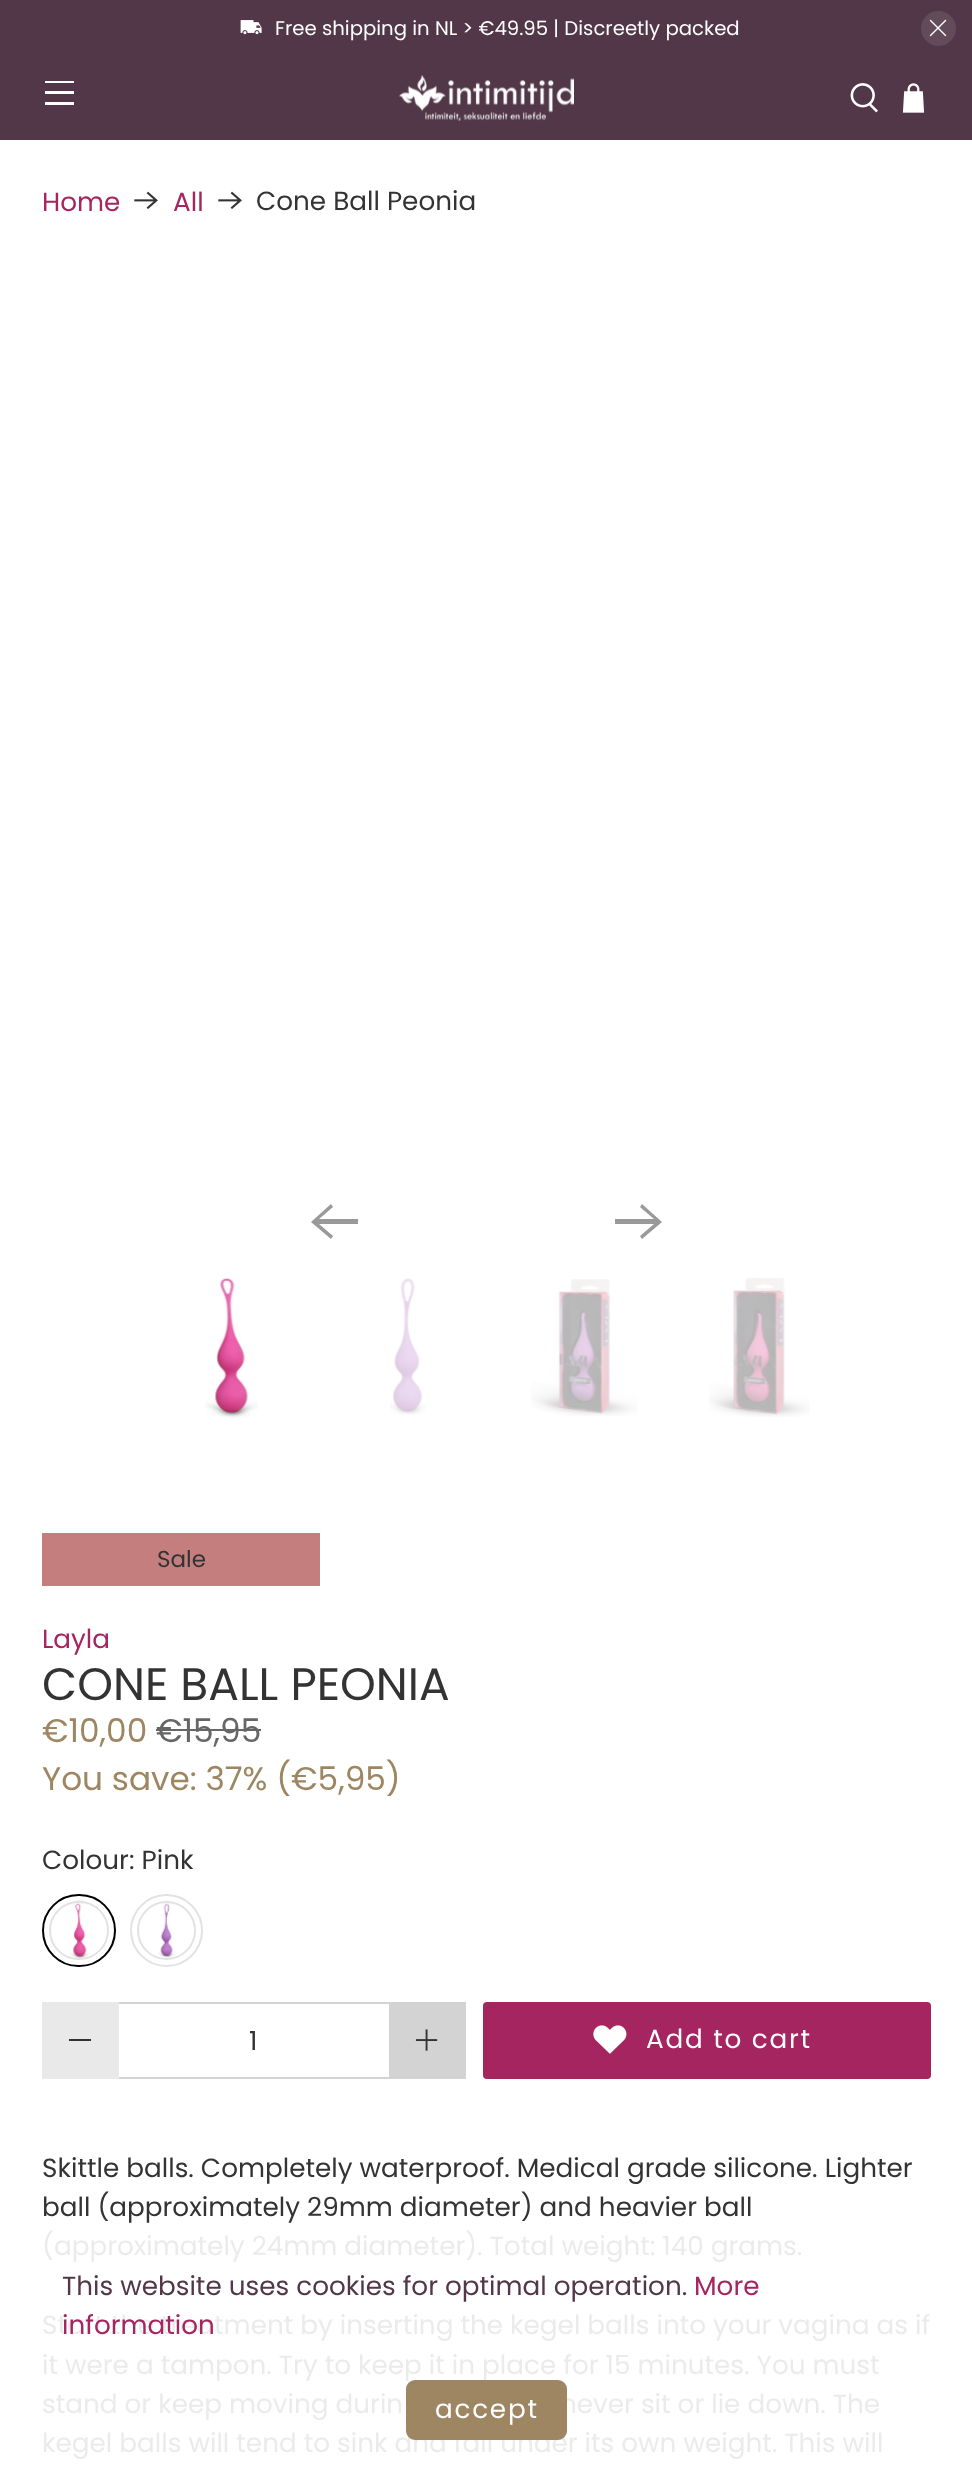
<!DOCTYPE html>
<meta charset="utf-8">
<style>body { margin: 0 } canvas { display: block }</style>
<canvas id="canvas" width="972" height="2474"></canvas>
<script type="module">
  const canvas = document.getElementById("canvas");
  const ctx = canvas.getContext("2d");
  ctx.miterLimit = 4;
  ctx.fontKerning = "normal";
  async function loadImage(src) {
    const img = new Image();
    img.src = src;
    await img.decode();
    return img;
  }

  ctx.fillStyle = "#ffffff";
  ctx.fillRect(0, 0, 972, 2474);
  ctx.fillStyle = "#523748";
  ctx.fillRect(0, 0, 972, 140);
  ctx.drawImage(await loadImage("img1.png"), 240, 20, 22, 15);
  ctx.font = "19.7px Poppins";
  ctx.fillStyle = "#ffffff";
  ctx.fillText("Free shipping in NL > €49.95 | Discreetly packed", 275, 35);
  ctx.fillStyle = "#634b5a";
  ctx.beginPath();
  ctx.arc(938.5, 28.5, 17.5, 0, Math.PI * 2);
  ctx.fill();
  ctx.drawImage(await loadImage("img2.png"), 929, 19, 18, 18);
  ctx.fillStyle = "#ffffff";
  ctx.fillRect(45, 81, 29, 2);
  ctx.fillRect(45, 91, 29, 3);
  ctx.fillRect(45, 102, 29, 3);
  ctx.drawImage(await loadImage("img3.png"), 399, 75, 175, 46);
  ctx.drawImage(await loadImage("img4.png"), 850, 83, 28, 30);
  ctx.drawImage(await loadImage("img5.png"), 902, 83, 23, 30);
  ctx.font = "26.25px Poppins";
  ctx.fillStyle = "#a52560";
  ctx.fillText("Home", 42, 211);
  ctx.drawImage(await loadImage("img6.png"), 134, 191, 24, 18);
  ctx.fillText("All", 173, 211);
  ctx.drawImage(await loadImage("img6.png"), 218, 191, 24, 18);
  ctx.fillStyle = "#333333";
  ctx.fillText("Cone Ball Peonia", 256, 210);
  ctx.fillStyle = "#999999";
  ctx.beginPath();
  ctx.moveTo(358, 1219);
  ctx.lineTo(319, 1219);
  ctx.lineTo(333, 1207);
  ctx.lineTo(331, 1204);
  ctx.lineTo(311, 1222);
  ctx.lineTo(331, 1239);
  ctx.lineTo(333, 1236);
  ctx.lineTo(319, 1224);
  ctx.lineTo(358, 1224);
  ctx.closePath();
  ctx.fill();
  ctx.beginPath();
  ctx.moveTo(615, 1224);
  ctx.lineTo(654, 1224);
  ctx.lineTo(640, 1236);
  ctx.lineTo(642, 1239);
  ctx.lineTo(662, 1222);
  ctx.lineTo(642, 1204);
  ctx.lineTo(640, 1207);
  ctx.lineTo(654, 1219);
  ctx.lineTo(615, 1219);
  ctx.closePath();
  ctx.fill();
  ctx.drawImage(await loadImage("img7.png"), 205, 1278, 53, 140);
  ctx.drawImage(await loadImage("img8.png"), 390, 1278, 36, 137);
  ctx.drawImage(await loadImage("img9.png"), 531, 1279, 107, 137);
  ctx.drawImage(await loadImage("img10.png"), 709, 1278, 101, 139);
  ctx.fillStyle = "#c57e7e";
  ctx.fillRect(42, 1533, 278, 53);
  ctx.font = "23px Poppins";
  ctx.fillStyle = "#333333";
  ctx.fillText("Sale", 157, 1567);
  ctx.font = "26.25px Poppins";
  ctx.fillStyle = "#a52560";
  ctx.fillText("Layla", 42, 1648);
  ctx.font = "45.5px Poppins";
  ctx.fillStyle = "#333333";
  ctx.fillText("CONE BALL PEONIA", 42, 1700);
  ctx.font = "32.75px Poppins";
  ctx.fillStyle = "#9d8661";
  ctx.fillText("€10,00", 42, 1742);
  ctx.fillStyle = "#666666";
  ctx.fillText("€15,95", 156, 1742);
  ctx.fillRect(156, 1729, 105, 2);
  ctx.fillStyle = "#9d8661";
  ctx.fillText("You save: 37% (€5,95)", 42, 1790);
  ctx.font = "26.25px Poppins";
  ctx.fillStyle = "#333333";
  ctx.fillText("Colour: Pink", 42, 1869);
  ctx.beginPath();
  ctx.roundRect(43, 1895, 72, 71, 35.5);
  ctx.strokeStyle = "#000000";
  ctx.lineWidth = 2;
  ctx.stroke();
  ctx.drawImage(await loadImage("img11.png"), 70, 1900, 20, 60);
  ctx.beginPath();
  ctx.roundRect(50, 1902, 58, 57, 28.5);
  ctx.strokeStyle = "#e2e2e2";
  ctx.stroke();
  ctx.beginPath();
  ctx.arc(166.5, 1930.5, 35.5, 0, Math.PI * 2);
  ctx.stroke();
  ctx.drawImage(await loadImage("img12.png"), 158, 1900, 18, 59);
  ctx.beginPath();
  ctx.arc(166.5, 1930.5, 28.5, 0, Math.PI * 2);
  ctx.stroke();
  ctx.fillStyle = "#e9e9e9";
  ctx.fillRect(42, 2002, 77, 77);
  ctx.fillStyle = "#333333";
  ctx.fillRect(69, 2039, 22, 2);
  ctx.fillStyle = "#d3d3d3";
  ctx.fillRect(119, 2002, 270, 2);
  ctx.fillRect(119, 2077, 270, 2);
  ctx.fillStyle = "#333333";
  ctx.fillText("1", 249, 2050);
  ctx.fillStyle = "#d3d3d3";
  ctx.fillRect(389, 2002, 77, 77);
  ctx.drawImage(await loadImage("img13.png"), 415, 2029, 23, 22);
  ctx.fillStyle = "#a52560";
  ctx.beginPath();
  ctx.roundRect(483, 2002, 448, 77, 4);
  ctx.fill();
  ctx.drawImage(await loadImage("img14.png"), 593, 2025, 34, 29);
  ctx.letterSpacing = "1.75px";
  ctx.fillStyle = "#ffffff";
  ctx.fillText("Add to cart", 646, 2048);
  ctx.letterSpacing = "0px";
  ctx.fillStyle = "#333333";
  ctx.fillText("Skittle balls. Completely waterproof. Medical grade silicone. Lighter", 42, 2177);
  ctx.fillText("ball (approximately 29mm diameter) and heavier ball", 42, 2216);
  ctx.fillStyle = "#ebebeb";
  ctx.fillText("(approximately 24mm diameter). Total weight: 140 grams.", 42, 2255);
  ctx.fillText("Start the treatment by inserting the kegel balls into your vagina as if", 42, 2334);
  ctx.fillText("it were a tampon. Try to keep it in place for 15 minutes. You must", 42, 2374);
  ctx.fillText("stand or keep moving durin", 42, 2413);
  ctx.fillText("never sit or lie down. The", 560, 2413);
  ctx.fillText("kegel balls will tend to sink and fall under its own weight. This will", 42, 2452);
  ctx.fillStyle = "#523748";
  ctx.fillText("This website uses cookies for optimal operation.", 62, 2295);
  ctx.fillStyle = "#a52560";
  ctx.fillText("More", 694, 2295);
  ctx.fillText("information", 62, 2334);
  ctx.fillStyle = "#9d8661";
  ctx.beginPath();
  ctx.roundRect(407, 2381, 159, 58, 8);
  ctx.fill();
  ctx.strokeStyle = "#9d8661";
  ctx.stroke();
  ctx.letterSpacing = "1.75px";
  ctx.fillStyle = "#ffffff";
  ctx.fillText("accept", 435, 2418);
</script>
